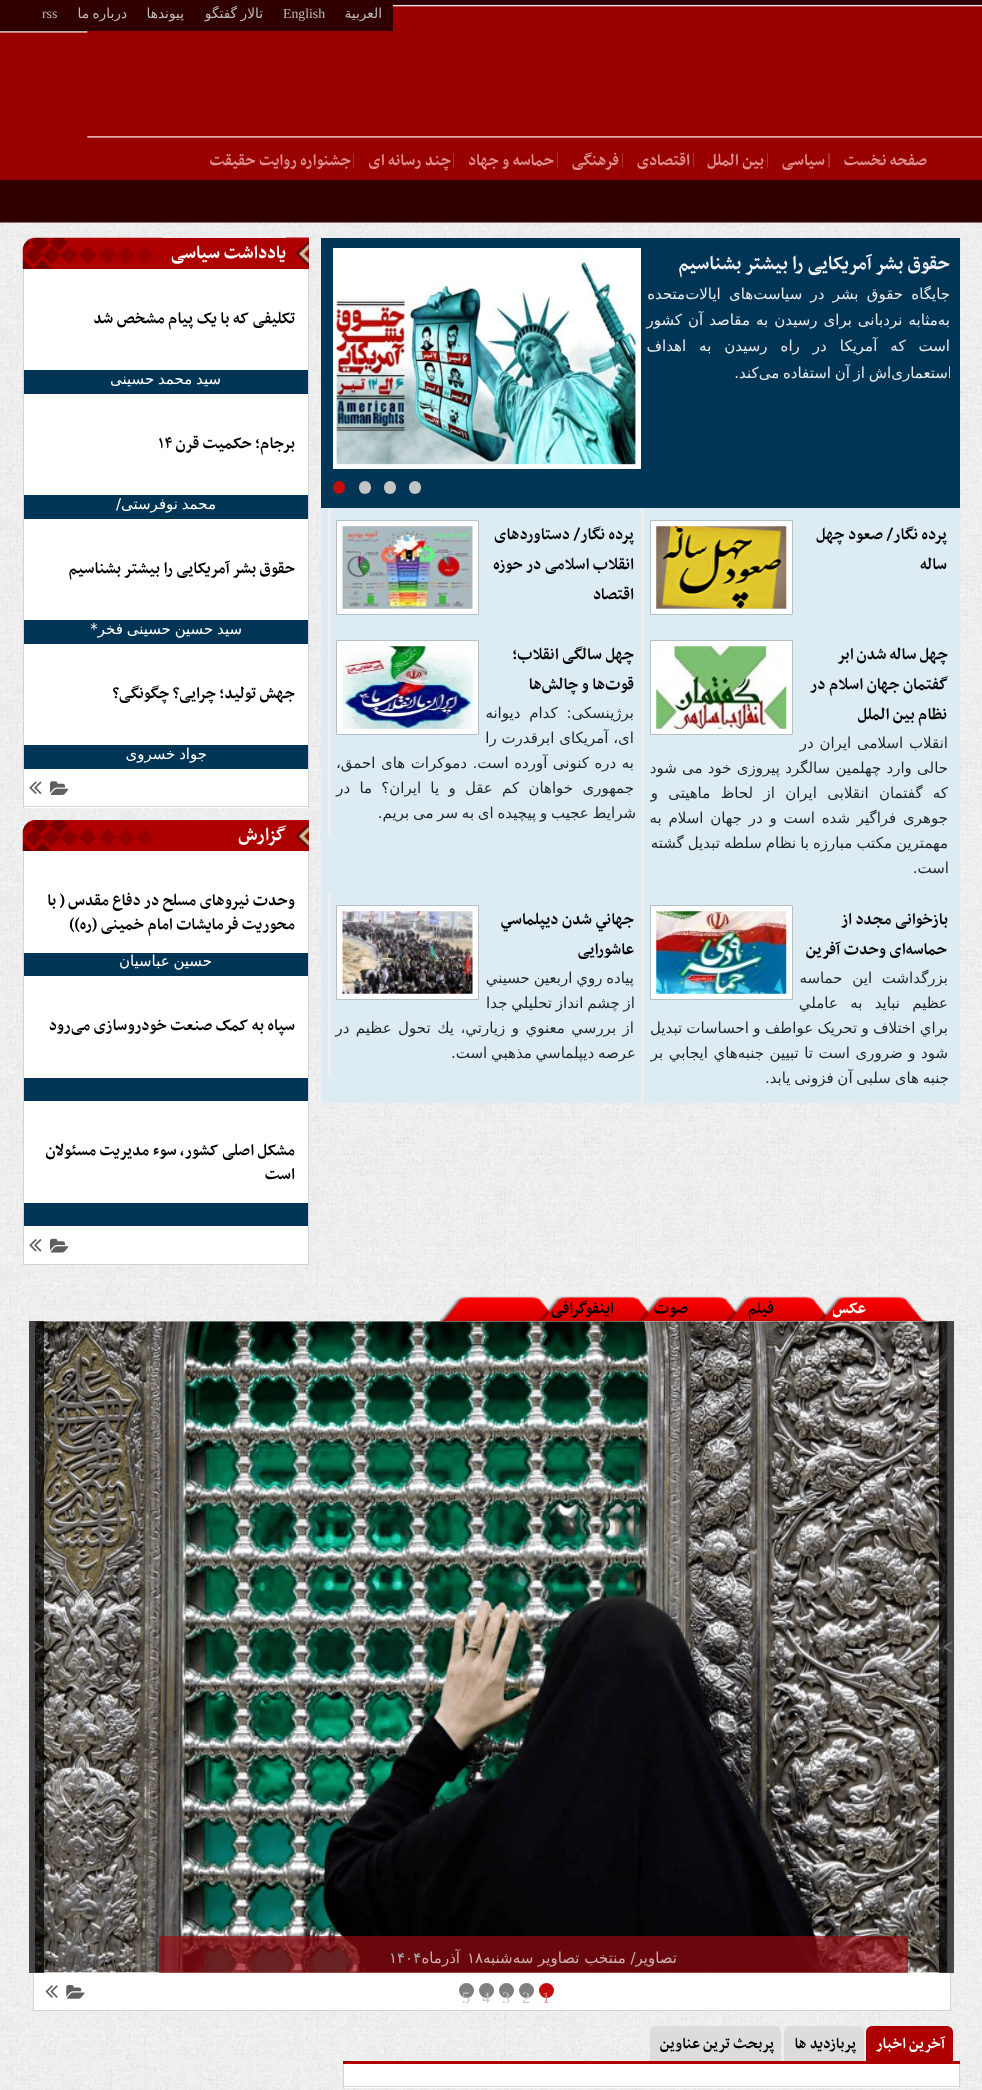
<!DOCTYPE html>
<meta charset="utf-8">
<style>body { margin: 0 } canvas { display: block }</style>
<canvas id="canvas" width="982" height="2090"></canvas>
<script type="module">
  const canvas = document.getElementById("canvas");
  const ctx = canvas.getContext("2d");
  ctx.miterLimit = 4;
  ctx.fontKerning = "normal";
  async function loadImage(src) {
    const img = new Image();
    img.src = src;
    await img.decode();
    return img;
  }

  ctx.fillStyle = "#ffffff";
  ctx.fillRect(0, 0, 982, 2090);
  ctx.drawImage(await loadImage("img1.png"), 0, 222, 982, 1868);
  ctx.drawImage(await loadImage("img2.png"), 0, 0, 982, 223);
  ctx.fillStyle = "#300000";
  ctx.fillRect(87, 4, 306, 27);
  ctx.direction = "rtl";
  ctx.font = "13.75px DejaVu Sans";
  ctx.fillStyle = "#bdbbbc";
  ctx.fillText("العربیة", 382, 18);
  ctx.direction = "ltr";
  ctx.font = "13.75px Liberation Serif";
  ctx.fillText("English", 283, 18);
  ctx.wordSpacing = "-1px";
  ctx.direction = "rtl";
  ctx.font = "13.75px DejaVu Sans";
  ctx.fillText("تالار گفتگو", 263, 18);
  ctx.wordSpacing = "0px";
  ctx.fillText("پیوندها", 184, 18);
  ctx.wordSpacing = "-1px";
  ctx.fillText("درباره ما", 127, 18);
  ctx.wordSpacing = "0px";
  ctx.direction = "ltr";
  ctx.font = "13.75px Liberation Serif";
  ctx.fillText("rss", 42, 18);
  ctx.font = "16px Liberation Serif";
  ctx.fillStyle = "#b93b3c";
  ctx.fillText("|", 828, 164);
  ctx.fillText("|", 827, 164);
  ctx.fillText("|", 766, 164);
  ctx.fillText("|", 692, 164);
  ctx.direction = "rtl";
  ctx.font = "bold 18.75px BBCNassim";
  ctx.fillStyle = "#df9191";
  ctx.fillText("اقتصادی", 690, 165);
  ctx.direction = "ltr";
  ctx.font = "16px Liberation Serif";
  ctx.fillStyle = "#b93b3c";
  ctx.fillText("|", 621, 164);
  ctx.direction = "rtl";
  ctx.font = "bold 18.75px BBCNassim";
  ctx.fillStyle = "#df9191";
  ctx.fillText("فرهنگی", 619, 165);
  ctx.direction = "ltr";
  ctx.font = "16px Liberation Serif";
  ctx.fillStyle = "#b93b3c";
  ctx.fillText("|", 556, 164);
  ctx.fillText("|", 452, 164);
  ctx.fillText("|", 352, 164);
  ctx.direction = "rtl";
  ctx.font = "bold 18.75px BBCNassim";
  ctx.fillStyle = "#df9191";
  ctx.fillText("صفحه نخست", 927, 165);
  ctx.fillText("سیاسی", 825, 165);
  ctx.fillText("بین الملل", 764, 165);
  ctx.fillText("حماسه و جهاد", 554, 165);
  ctx.fillText("چند رسانه ای", 451, 165);
  ctx.fillText("جشنواره روایت حقیقت", 351, 165);
  ctx.fillStyle = "#003555";
  ctx.fillRect(321, 238, 639, 270);
  ctx.font = "bold 22.5px BBCNassim";
  ctx.fillStyle = "#f5f4f9";
  ctx.fillText("حقوق بشر آمریکایی را بیشتر بشناسیم", 950, 269);
  ctx.fillStyle = "#ffffff";
  ctx.fillRect(333, 248, 308, 221);
  ctx.drawImage(await loadImage("img3.png"), 336, 253, 300, 212);
  ctx.wordSpacing = "3.5px";
  ctx.font = "15px DejaVu Sans";
  ctx.fillStyle = "#e9e9e9";
  ctx.fillText("جایگاه حقوق بشر در سیاست‌های ایالات‌متحده", 950, 299);
  ctx.wordSpacing = "1.25px";
  ctx.fillText("به‌مثابه نردبانی برای رسیدن به مقاصد آن کشور", 950, 325);
  ctx.wordSpacing = "8.25px";
  ctx.fillText("است که آمریکا در راه رسیدن به اهداف", 950, 351);
  ctx.save();
  ctx.beginPath();
  ctx.rect(333, 248, 617, 221);
  ctx.clip();
  ctx.wordSpacing = "-1px";
  ctx.fillText("استعماری‌اش از آن استفاده می‌کند.", 952, 378);
  ctx.restore();
  ctx.fillStyle = "#c5c5c5";
  ctx.beginPath();
  ctx.roundRect(409, 481, 12, 13, 6);
  ctx.fill();
  ctx.beginPath();
  ctx.roundRect(384, 481, 12, 13, 6);
  ctx.fill();
  ctx.beginPath();
  ctx.roundRect(359, 481, 12, 13, 6);
  ctx.fill();
  ctx.fillStyle = "#c40d0f";
  ctx.beginPath();
  ctx.roundRect(333, 481, 12, 13, 6);
  ctx.fill();
  ctx.fillStyle = "#ddecf3";
  ctx.fillRect(321, 508, 639, 595);
  ctx.fillStyle = "#eeeeee";
  ctx.fillRect(641, 508, 3, 595);
  ctx.wordSpacing = "0px";
  ctx.font = "bold 18.75px BBCNassim";
  ctx.fillStyle = "#010000";
  ctx.fillText("پرده نگار/ صعود چهل", 947, 539);
  ctx.fillText("ساله", 947, 569);
  ctx.fillStyle = "#ffffff";
  ctx.beginPath();
  ctx.rect(650.5, 520.5, 142, 94);
  ctx.fill();
  ctx.strokeStyle = "#b2bfc5";
  ctx.stroke();
  ctx.drawImage(await loadImage("img4.png"), 656, 526, 131, 83);
  ctx.fillStyle = "#eeeeee";
  ctx.fillRect(328, 508, 3, 330);
  ctx.fillStyle = "#010000";
  ctx.fillText("پرده نگار/ دستاوردهای", 634, 539);
  ctx.fillText("انقلاب اسلامی در حوزه", 634, 569);
  ctx.fillText("اقتصاد", 634, 599);
  ctx.fillStyle = "#ffffff";
  ctx.beginPath();
  ctx.rect(336.5, 520.5, 142, 94);
  ctx.fill();
  ctx.stroke();
  ctx.drawImage(await loadImage("img5.png"), 342, 526, 131, 83);
  ctx.wordSpacing = "-0.5px";
  ctx.fillStyle = "#010000";
  ctx.fillText("چهل ساله شدن ابر", 948, 659);
  ctx.wordSpacing = "0px";
  ctx.fillText("گفتمان جهان اسلام در", 948, 689);
  ctx.fillText("نظام بین الملل", 947, 719);
  ctx.fillStyle = "#ffffff";
  ctx.beginPath();
  ctx.rect(650.5, 640.5, 142, 94);
  ctx.fill();
  ctx.stroke();
  ctx.drawImage(await loadImage("img6.png"), 656, 646, 131, 83);
  ctx.wordSpacing = "1px";
  ctx.font = "15px DejaVu Sans";
  ctx.fillStyle = "#1f2428";
  ctx.fillText("انقلاب اسلامی ایران در", 948, 748);
  ctx.wordSpacing = "0.5px";
  ctx.fillText("حالی وارد چهلمین سالگرد پیروزی خود می شود", 948, 773);
  ctx.wordSpacing = "5.5px";
  ctx.fillText("که گفتمان انقلابی ایران از لحاظ ماهیتی و", 948, 798);
  ctx.wordSpacing = "2px";
  ctx.fillText("جوهری فراگیر شده است و در جهان اسلام به", 948, 823);
  ctx.wordSpacing = "-0.75px";
  ctx.fillText("مهمترین مکتب مبارزه با نظام سلطه تبدیل گشته", 948, 848);
  ctx.wordSpacing = "0px";
  ctx.fillText("است.", 949, 873);
  ctx.font = "bold 18.75px BBCNassim";
  ctx.fillStyle = "#010000";
  ctx.fillText("چهل سالگی انقلاب؛", 634, 659);
  ctx.fillText("قوت‌ها و چالش‌ها", 634, 689);
  ctx.fillStyle = "#ffffff";
  ctx.beginPath();
  ctx.rect(336.5, 640.5, 142, 94);
  ctx.fill();
  ctx.stroke();
  ctx.drawImage(await loadImage("img7.png"), 342, 646, 131, 83);
  ctx.wordSpacing = "4px";
  ctx.font = "15px DejaVu Sans";
  ctx.fillStyle = "#1f2428";
  ctx.fillText("برژینسکی: کدام دیوانه", 634, 718);
  ctx.wordSpacing = "0px";
  ctx.fillText("ای، آمریکای ابرقدرت را", 634, 743);
  ctx.wordSpacing = "0.75px";
  ctx.fillText("به دره کنونی آورده است. دموکرات های احمق،", 634, 768);
  ctx.wordSpacing = "4.5px";
  ctx.fillText("جمهوری خواهان کم عقل و یا ایران؟ ما در", 634, 793);
  ctx.wordSpacing = "-1px";
  ctx.fillText("شرایط عجیب و پیچیده ای به سر می بریم.", 636, 818);
  ctx.wordSpacing = "0px";
  ctx.font = "bold 18.75px BBCNassim";
  ctx.fillStyle = "#010000";
  ctx.fillText("بازخوانی مجدد از", 948, 924);
  ctx.fillText("حماسه‌ای وحدت آفرین", 947, 954);
  ctx.fillStyle = "#ffffff";
  ctx.beginPath();
  ctx.rect(650.5, 905.5, 142, 94);
  ctx.fill();
  ctx.stroke();
  ctx.drawImage(await loadImage("img8.png"), 656, 911, 131, 83);
  ctx.wordSpacing = "5px";
  ctx.font = "15px DejaVu Sans";
  ctx.fillStyle = "#1f2428";
  ctx.fillText("بزرگداشت این حماسه", 948, 983);
  ctx.wordSpacing = "7.5px";
  ctx.fillText("عظیم نباید به عاملي", 948, 1008);
  ctx.wordSpacing = "-0.5px";
  ctx.fillText("براي اختلاف و تحريک عواطف و احساسات تبدیل", 948, 1033);
  ctx.wordSpacing = "0.75px";
  ctx.fillText("شود و ضروری است تا تبیین جنبه‌هاي ايجابي بر", 948, 1058);
  ctx.wordSpacing = "-1px";
  ctx.fillText("جنبه های سلبی آن فزونی یابد.", 949, 1083);
  ctx.fillStyle = "#eeeeee";
  ctx.fillRect(328, 893, 3, 185);
  ctx.wordSpacing = "0px";
  ctx.font = "bold 18.75px BBCNassim";
  ctx.fillStyle = "#010000";
  ctx.fillText("جهاني شدن ديپلماسي", 634, 924);
  ctx.fillText("عاشورایی", 634, 954);
  ctx.fillStyle = "#ffffff";
  ctx.beginPath();
  ctx.rect(336.5, 905.5, 142, 94);
  ctx.fill();
  ctx.stroke();
  ctx.drawImage(await loadImage("img9.png"), 342, 911, 131, 83);
  ctx.wordSpacing = "-1px";
  ctx.font = "15px DejaVu Sans";
  ctx.fillStyle = "#1f2428";
  ctx.fillText("پياده روي اربعين حسيني", 634, 983);
  ctx.fillText("از چشم انداز تحليلي جدا", 635, 1008);
  ctx.wordSpacing = "1.75px";
  ctx.fillText("از بررسي معنوي و زيارتي، يك تحول عظيم در", 634, 1033);
  ctx.wordSpacing = "-1px";
  ctx.fillText("عرصه ديپلماسي مذهبي است.", 636, 1058);
  ctx.fillStyle = "#ae0001";
  ctx.beginPath();
  ctx.roundRect(23, 238, 286, 31, [13, 0, 0, 0]);
  ctx.fill();
  ctx.drawImage(await loadImage("img10.png"), 22, 237, 141, 32);
  ctx.drawImage(await loadImage("img11.png"), 286, 237, 23, 30);
  ctx.wordSpacing = "0px";
  ctx.font = "bold 21.25px BBCNassim";
  ctx.fillStyle = "#ffffff";
  ctx.fillText("یادداشت سیاسی", 286, 258);
  ctx.fillRect(24, 269, 284, 539);
  ctx.fillStyle = "#d2d3d5";
  ctx.fillRect(308, 269, 1, 539);
  ctx.fillRect(23, 806, 286, 1);
  ctx.fillRect(23, 269, 1, 539);
  ctx.font = "bold 18.75px BBCNassim";
  ctx.fillStyle = "#010000";
  ctx.fillText("تکلیفی که با یک پیام مشخص شد", 295, 323);
  ctx.fillStyle = "#003555";
  ctx.fillRect(24, 370, 284, 24);
  ctx.wordSpacing = "-1px";
  ctx.font = "15px DejaVu Sans";
  ctx.fillStyle = "#ffffff";
  ctx.fillText("سید محمد حسینی", 221, 384);
  ctx.wordSpacing = "0px";
  ctx.font = "bold 18.75px BBCNassim";
  ctx.fillStyle = "#010000";
  ctx.fillText("برجام؛ حکمیت قرن", 295, 448);
  ctx.direction = "ltr";
  ctx.fillText("۱۴", 158, 448);
  ctx.fillStyle = "#003555";
  ctx.fillRect(24, 495, 284, 24);
  ctx.wordSpacing = "-1px";
  ctx.direction = "rtl";
  ctx.font = "15px DejaVu Sans";
  ctx.fillStyle = "#ffffff";
  ctx.fillText("محمد نوفرستی/", 216, 509);
  ctx.wordSpacing = "0px";
  ctx.font = "bold 18.75px BBCNassim";
  ctx.fillStyle = "#010000";
  ctx.fillText("حقوق بشر آمریکایی را بیشتر بشناسیم", 295, 573);
  ctx.fillStyle = "#003555";
  ctx.fillRect(24, 620, 284, 24);
  ctx.wordSpacing = "-1px";
  ctx.font = "15px DejaVu Sans";
  ctx.fillStyle = "#ffffff";
  ctx.fillText("سید حسین حسینی فخر*", 242, 634);
  ctx.wordSpacing = "0px";
  ctx.font = "bold 18.75px BBCNassim";
  ctx.fillStyle = "#010000";
  ctx.fillText("جهش تولید؛ چرایی؟ چگونگی؟", 295, 698);
  ctx.fillStyle = "#003555";
  ctx.fillRect(24, 745, 284, 24);
  ctx.wordSpacing = "-1px";
  ctx.font = "15px DejaVu Sans";
  ctx.fillStyle = "#ffffff";
  ctx.fillText("جواد خسروی", 207, 759);
  ctx.drawImage(await loadImage("img12.png"), 50, 781, 19, 14);
  ctx.drawImage(await loadImage("img13.png"), 29, 781, 13, 13);
  ctx.fillStyle = "#ae0001";
  ctx.beginPath();
  ctx.roundRect(23, 820, 286, 31, [13, 0, 0, 0]);
  ctx.fill();
  ctx.drawImage(await loadImage("img14.png"), 22, 820, 141, 31);
  ctx.drawImage(await loadImage("img15.png"), 286, 820, 23, 31);
  ctx.wordSpacing = "0px";
  ctx.font = "bold 21.25px BBCNassim";
  ctx.fillStyle = "#ffffff";
  ctx.fillText("گزارش", 286, 840);
  ctx.fillRect(24, 851, 284, 413);
  ctx.fillStyle = "#d2d3d5";
  ctx.fillRect(308, 851, 1, 414);
  ctx.fillRect(23, 1264, 286, 1);
  ctx.fillRect(23, 851, 1, 414);
  ctx.font = "bold 18.75px BBCNassim";
  ctx.fillStyle = "#010000";
  ctx.fillText("وحدت نیروهای مسلح در دفاع مقدس", 295, 905);
  ctx.fillText("( با", 65, 905);
  ctx.fillText("محوریت فرمایشات امام خمینی (ره))", 295, 929);
  ctx.fillStyle = "#003555";
  ctx.fillRect(24, 953, 284, 23);
  ctx.wordSpacing = "-1px";
  ctx.font = "15px DejaVu Sans";
  ctx.fillStyle = "#ffffff";
  ctx.fillText("حسین عباسیان", 212, 966);
  ctx.wordSpacing = "0px";
  ctx.font = "bold 18.75px BBCNassim";
  ctx.fillStyle = "#010000";
  ctx.fillText("سپاه به کمک صنعت خودروسازی می‌رود", 295, 1030);
  ctx.fillStyle = "#003555";
  ctx.fillRect(24, 1078, 284, 23);
  ctx.fillStyle = "#010000";
  ctx.fillText("مشکل اصلی کشور، سوء مدیریت مسئولان", 295, 1155);
  ctx.fillText("است", 295, 1179);
  ctx.fillStyle = "#003555";
  ctx.fillRect(24, 1203, 284, 23);
  ctx.drawImage(await loadImage("img16.png"), 50, 1238, 19, 15);
  ctx.drawImage(await loadImage("img17.png"), 29, 1239, 13, 13);
  ctx.drawImage(await loadImage("img18.png"), 440, 1296, 487, 26);
  ctx.save();
  ctx.beginPath();
  ctx.rect(833, 1291, 55, 30);
  ctx.clip();
  ctx.fillStyle = "#ffffff";
  ctx.fillText("عکس", 866, 1313);
  ctx.restore();
  ctx.fillStyle = "#010000";
  ctx.fillText("فیلم", 774, 1313);
  ctx.fillText("صوت", 688, 1313);
  ctx.fillText("اینفوگرافی", 614, 1313);
  ctx.drawImage(await loadImage("img19.png"), 35, 1321, 913, 652);
  ctx.fillStyle = "rgba(0, 0, 0, 0.7)";
  ctx.fillRect(939, 1321, 15, 652);
  ctx.direction = "ltr";
  ctx.font = "bold 26px BBCNassim";
  ctx.fillStyle = "#6c6b6b";
  ctx.fillText("<", 942, 1653);
  ctx.fillStyle = "rgba(0, 0, 0, 0.7)";
  ctx.fillRect(29, 1321, 15, 652);
  ctx.fillStyle = "#666665";
  ctx.fillText(">", 32, 1653);
  ctx.fillStyle = "rgba(154, 9, 16, 0.68)";
  ctx.fillRect(159, 1936, 749, 37);
  ctx.direction = "rtl";
  ctx.font = "15px DejaVu Sans";
  ctx.fillStyle = "#cfb0b1";
  ctx.fillText("تصاویر/ منتخب تصاویر سه‌شنبه", 677, 1963);
  ctx.direction = "ltr";
  ctx.fillText("۱۸", 467, 1963);
  ctx.direction = "rtl";
  ctx.fillText("آذرماه", 460, 1963);
  ctx.direction = "ltr";
  ctx.fillStyle = "#aeaeae";
  ctx.fillText("۱۴۰۴", 389, 1963);
  ctx.fillStyle = "#ffffff";
  ctx.fillRect(34, 1973, 916, 37);
  ctx.fillStyle = "#c20e0e";
  ctx.beginPath();
  ctx.arc(546.5, 1990.5, 7.5, 0, Math.PI * 2);
  ctx.fill();
  ctx.font = "16px Liberation Serif";
  ctx.fillStyle = "#e08484";
  ctx.fillText("1", 542, 2003);
  ctx.fillStyle = "#7f7f7f";
  ctx.beginPath();
  ctx.arc(526.5, 1990.5, 7.5, 0, Math.PI * 2);
  ctx.fill();
  ctx.fillStyle = "#c7c7c7";
  ctx.fillText("2", 522, 2003);
  ctx.fillStyle = "#7f7f7f";
  ctx.beginPath();
  ctx.arc(506.5, 1990.5, 7.5, 0, Math.PI * 2);
  ctx.fill();
  ctx.fillStyle = "#c7c7c7";
  ctx.fillText("3", 502, 2003);
  ctx.fillStyle = "#7f7f7f";
  ctx.beginPath();
  ctx.arc(486.5, 1990.5, 7.5, 0, Math.PI * 2);
  ctx.fill();
  ctx.fillStyle = "#c7c7c7";
  ctx.fillText("4", 482, 2003);
  ctx.fillStyle = "#7f7f7f";
  ctx.beginPath();
  ctx.arc(466.5, 1990.5, 7.5, 0, Math.PI * 2);
  ctx.fill();
  ctx.fillStyle = "#c7c7c7";
  ctx.fillText("5", 462, 2003);
  ctx.fillStyle = "#d2d3d5";
  ctx.fillRect(950, 1973, 1, 38);
  ctx.fillRect(33, 2010, 918, 1);
  ctx.fillRect(33, 1973, 1, 38);
  ctx.drawImage(await loadImage("img20.png"), 66, 1985, 19, 14);
  ctx.drawImage(await loadImage("img21.png"), 45, 1985, 13, 13);
  ctx.fillStyle = "#ae0000";
  ctx.fillRect(343, 2061, 617, 3);
  ctx.fillStyle = "#ae0001";
  ctx.beginPath();
  ctx.roundRect(866, 2026, 87, 35, [6, 6, 0, 0]);
  ctx.fill();
  ctx.direction = "rtl";
  ctx.font = "bold 17.5px BBCNassim";
  ctx.fillStyle = "#ffffff";
  ctx.fillText("آخرین اخبار", 945, 2048);
  ctx.fillStyle = "#dcdcdc";
  ctx.beginPath();
  ctx.roundRect(784, 2026, 80, 35, [6, 6, 0, 0]);
  ctx.fill();
  ctx.fillStyle = "#010000";
  ctx.fillText("پربازدید ها", 856, 2048);
  ctx.fillStyle = "#dcdcdc";
  ctx.beginPath();
  ctx.roundRect(650, 2026, 131, 35, [6, 6, 0, 0]);
  ctx.fill();
  ctx.fillStyle = "#010000";
  ctx.fillText("پربحث ترین عناوین", 774, 2048);
  ctx.fillStyle = "#ffffff";
  ctx.fillRect(344, 2064, 615, 24);
  ctx.fillStyle = "#d2d3d5";
  ctx.fillRect(959, 2064, 1, 24);
  ctx.fillRect(343, 2086, 617, 1);
  ctx.fillRect(343, 2064, 1, 24);
</script>
